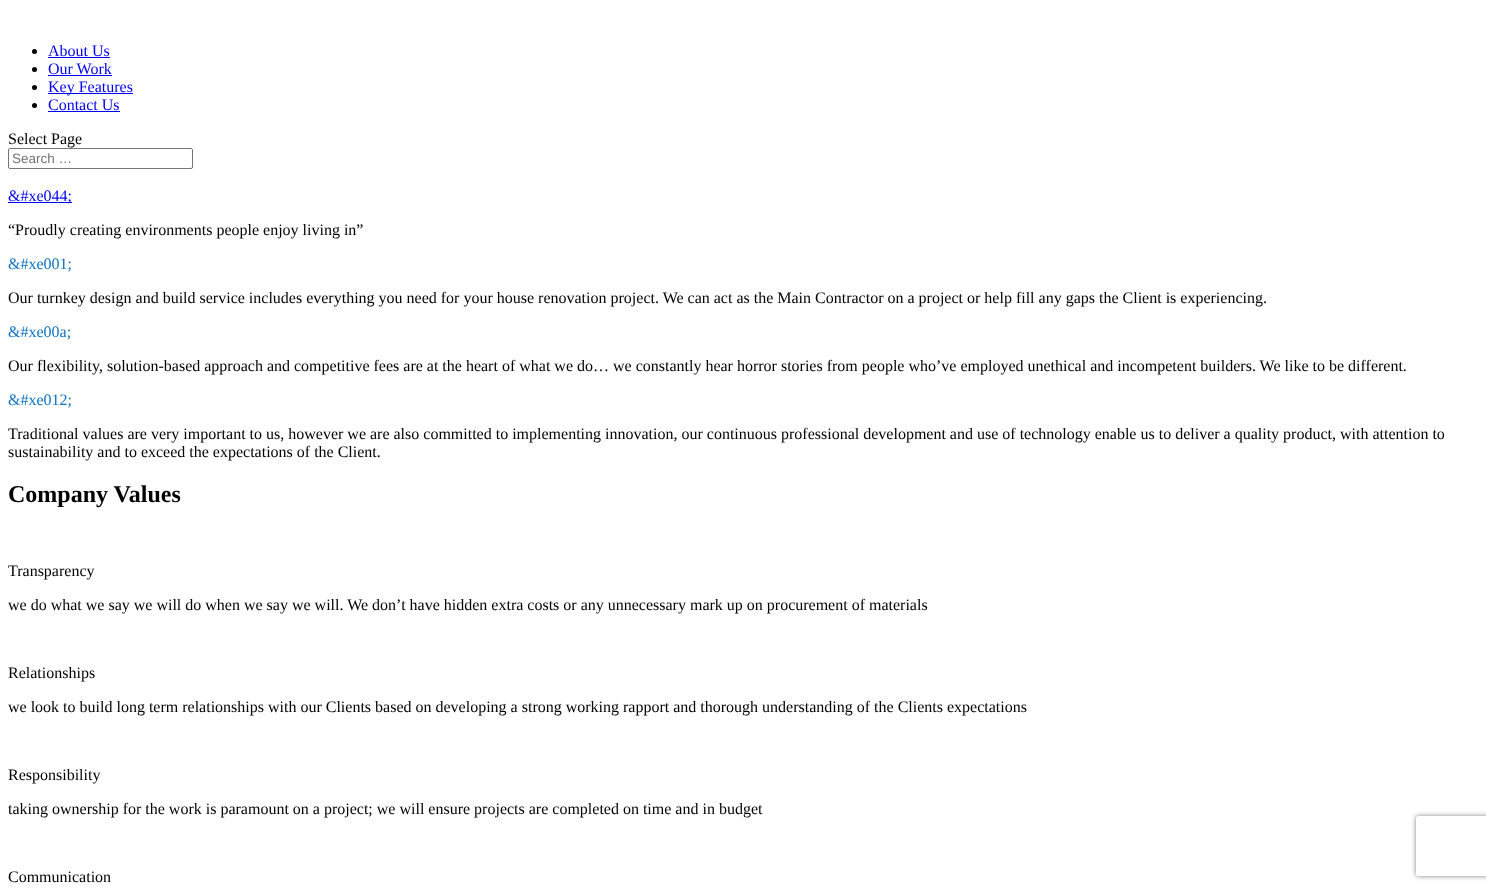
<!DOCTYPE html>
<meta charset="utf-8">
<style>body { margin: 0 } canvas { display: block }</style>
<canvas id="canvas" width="1486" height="890"></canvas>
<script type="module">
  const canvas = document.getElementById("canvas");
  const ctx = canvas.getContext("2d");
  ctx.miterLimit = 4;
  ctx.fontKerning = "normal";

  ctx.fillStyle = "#ffffff";
  ctx.fillRect(0, 0, 1486, 890);
  ctx.fillStyle = "#000000";
  ctx.beginPath();
  ctx.arc(34.5, 51.5, 2.5, 0, Math.PI * 2);
  ctx.fill();
  ctx.font = "16px Liberation Serif";
  ctx.fillStyle = "#0000ee";
  ctx.fillText("About Us", 48, 56);
  ctx.fillRect(48, 57, 62, 1);
  ctx.fillStyle = "#000000";
  ctx.beginPath();
  ctx.arc(34.5, 69.5, 2.5, 0, Math.PI * 2);
  ctx.fill();
  ctx.fillStyle = "#0000ee";
  ctx.fillText("Our Work", 48, 74);
  ctx.fillRect(48, 75, 64, 1);
  ctx.fillStyle = "#000000";
  ctx.beginPath();
  ctx.arc(34.5, 87.5, 2.5, 0, Math.PI * 2);
  ctx.fill();
  ctx.fillStyle = "#0000ee";
  ctx.fillRect(48, 93, 85, 1);
  ctx.fillText("Key Features", 48, 92);
  ctx.fillStyle = "#000000";
  ctx.beginPath();
  ctx.arc(34.5, 105.5, 2.5, 0, Math.PI * 2);
  ctx.fill();
  ctx.fillStyle = "#0000ee";
  ctx.fillText("Contact Us", 48, 110);
  ctx.fillRect(48, 111, 72, 1);
  ctx.fillStyle = "#000000";
  ctx.fillText("Select Page", 8, 144);
  ctx.beginPath();
  ctx.roundRect(8.5, 148.5, 184, 20, 1.5);
  ctx.strokeStyle = "#767676";
  ctx.stroke();
  ctx.font = "13.5px Liberation Sans";
  ctx.fillStyle = "#757575";
  ctx.fillText("Search …", 12, 163);
  ctx.fillStyle = "#0000ee";
  ctx.fillRect(8, 202, 64, 1);
  ctx.font = "16px Liberation Serif";
  ctx.fillText("&#xe044;", 8, 201);
  ctx.fillStyle = "#000000";
  ctx.fillText("“Proudly creating environments people enjoy living in”", 8, 235);
  ctx.fillStyle = "#0c71c3";
  ctx.fillText("&#xe001;", 8, 269);
  ctx.fillStyle = "#000000";
  ctx.fillText("Our turnkey design and build service includes everything you need for your house renovation project. We can act as the Main Contractor on a project or help fill any gaps the Client is experiencing.", 8, 303);
  ctx.fillStyle = "#0c71c3";
  ctx.fillText("&#xe00a;", 8, 337);
  ctx.fillStyle = "#000000";
  ctx.fillText("Our flexibility, solution-based approach and competitive fees are at the heart of what we do… we constantly hear horror stories from people who’ve employed unethical and incompetent builders. We like to be different.", 8, 371);
  ctx.fillStyle = "#0c71c3";
  ctx.fillText("&#xe012;", 8, 405);
  ctx.fillStyle = "#000000";
  ctx.fillText("Traditional values are very important to us, however we are also committed to implementing innovation, our continuous professional development and use of technology enable us to deliver a quality product, with attention to", 8, 439);
  ctx.fillText("sustainability and to exceed the expectations of the Client.", 8, 457);
  ctx.font = "bold 24px Liberation Serif";
  ctx.fillText("Company Values", 8, 502);
  ctx.font = "16px Liberation Serif";
  ctx.fillText("Transparency", 8, 576);
  ctx.fillText("we do what we say we will do when we say we will. We don’t have hidden extra costs or any unnecessary mark up on procurement of materials", 8, 610);
  ctx.fillText("Relationships", 8, 678);
  ctx.fillText("we look to build long term relationships with our Clients based on developing a strong working rapport and thorough understanding of the Clients expectations", 8, 712);
  ctx.fillText("Responsibility", 8, 780);
  ctx.fillText("taking ownership for the work is paramount on a project; we will ensure projects are completed on time and in budget", 8, 814);
  ctx.fillText("Communication", 8, 882);
  ctx.save();
  ctx.beginPath();
  ctx.moveTo(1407, 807);
  ctx.lineTo(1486, 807);
  ctx.lineTo(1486, 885);
  ctx.lineTo(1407, 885);
  ctx.closePath();
  ctx.moveTo(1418, 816);
  ctx.lineTo(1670, 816);
  ctx.bezierCurveTo(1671, 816, 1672, 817, 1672, 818);
  ctx.lineTo(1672, 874);
  ctx.bezierCurveTo(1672, 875, 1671, 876, 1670, 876);
  ctx.lineTo(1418, 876);
  ctx.bezierCurveTo(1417, 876, 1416, 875, 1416, 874);
  ctx.lineTo(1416, 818);
  ctx.bezierCurveTo(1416, 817, 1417, 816, 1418, 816);
  ctx.closePath();
  ctx.clip("evenodd");
  ctx.fillStyle = "#808080";
  ctx.filter = "blur(2.5px)";
  ctx.beginPath();
  ctx.roundRect(1416, 816, 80, 60, 2);
  ctx.fill();
  ctx.filter = "none";
  ctx.restore();
</script>
